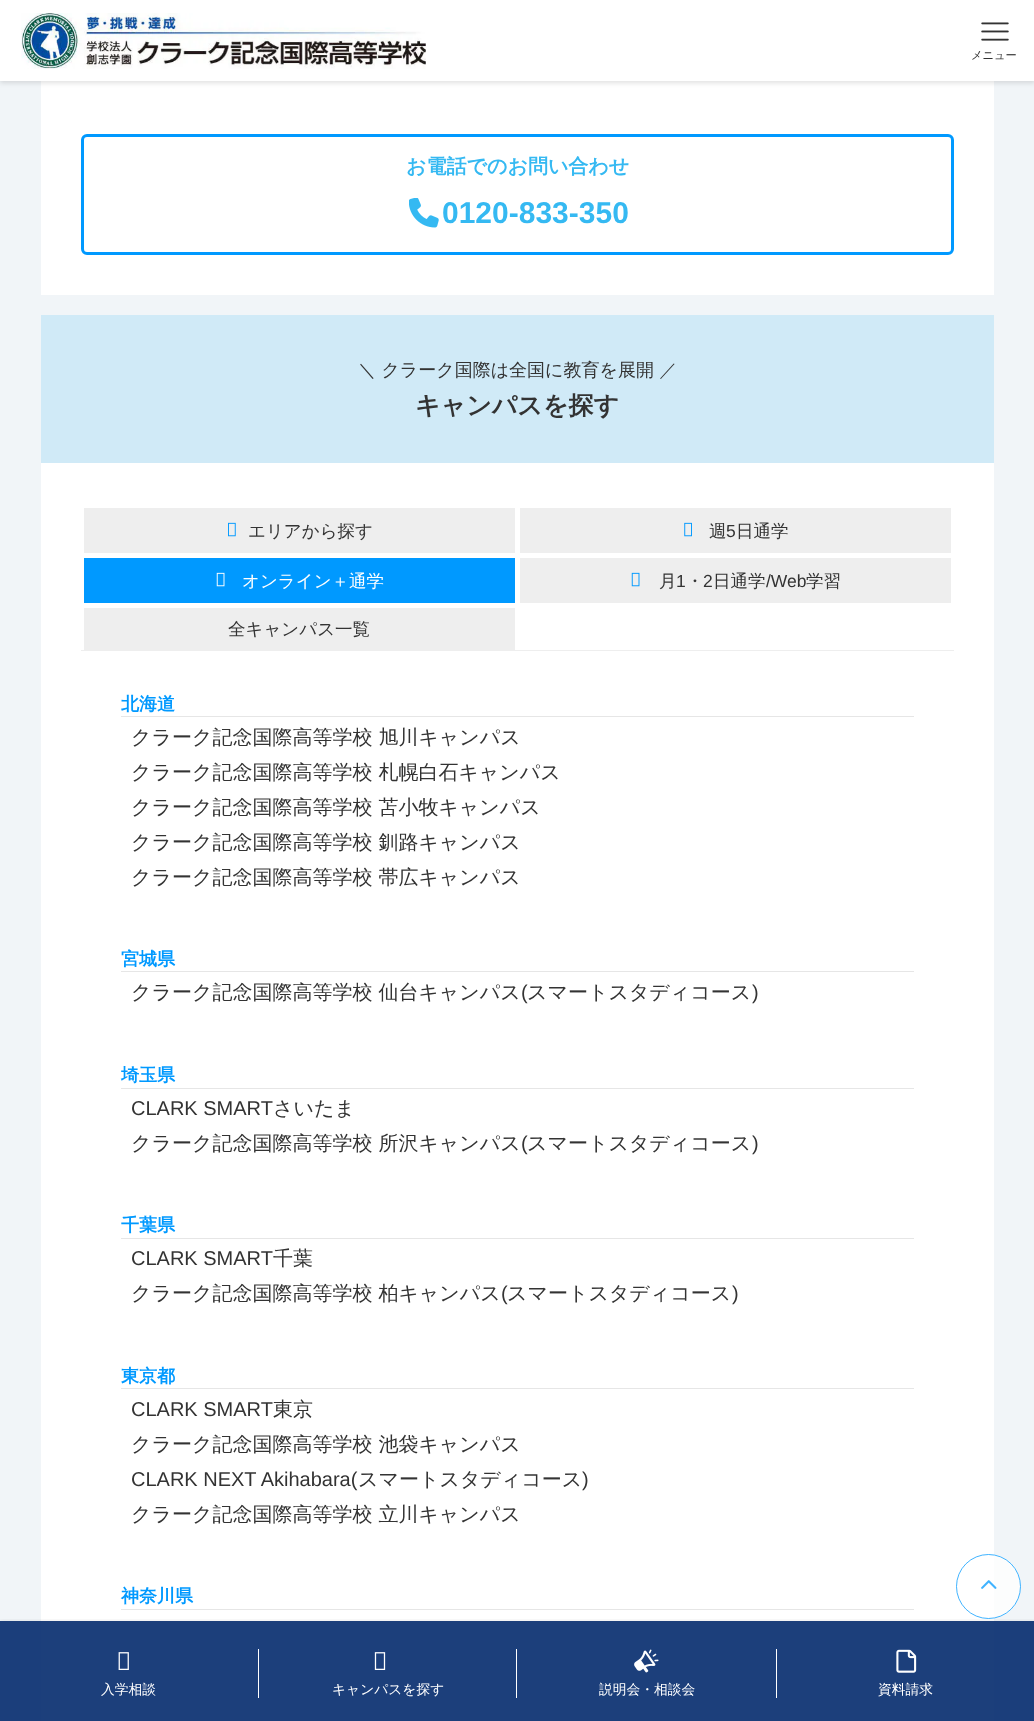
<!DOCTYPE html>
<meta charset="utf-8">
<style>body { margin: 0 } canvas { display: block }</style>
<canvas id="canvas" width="1034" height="1721"></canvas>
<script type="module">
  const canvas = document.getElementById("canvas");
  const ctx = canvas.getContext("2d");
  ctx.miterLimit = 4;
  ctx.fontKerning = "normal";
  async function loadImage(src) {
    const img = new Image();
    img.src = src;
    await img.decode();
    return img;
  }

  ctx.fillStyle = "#f1f5f8";
  ctx.fillRect(0, 0, 1034, 1721);
  ctx.fillStyle = "#ffffff";
  ctx.fillRect(41, 81, 953, 214);
  ctx.fillStyle = "rgba(0, 0, 0, 0.12)";
  ctx.filter = "blur(2.5px)";
  ctx.beginPath();
  ctx.rect(0, 1, 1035, 82);
  ctx.fill();
  ctx.filter = "none";
  ctx.fillStyle = "#ffffff";
  ctx.fillRect(0, 0, 1034, 81);
  ctx.drawImage(await loadImage("img1.png"), 21, 13, 405, 56);
  ctx.drawImage(await loadImage("img2.png"), 981, 22, 28, 19);
  ctx.font = "500 11.25px WenQuanYi Zen Hei";
  ctx.fillStyle = "#333333";
  ctx.fillText("メニュー", 971, 59);
  ctx.beginPath();
  ctx.roundRect(82.5, 135.5, 870, 118, 4.5);
  ctx.strokeStyle = "#0099ff";
  ctx.lineWidth = 3;
  ctx.stroke();
  ctx.font = "bold 20px WenQuanYi Zen Hei";
  ctx.fillStyle = "#35b9f2";
  ctx.fillText("お電話でのお問い合わせ", 406, 173);
  ctx.drawImage(await loadImage("img3.png"), 409, 198, 30, 30);
  ctx.font = "bold 30px Liberation Sans";
  ctx.fillText("0120-833-350", 442, 223);
  ctx.fillStyle = "#d0eaf7";
  ctx.fillRect(41, 315, 953, 148);
  ctx.font = "500 18px WenQuanYi Zen Hei";
  ctx.fillStyle = "#333333";
  ctx.fillText("＼ クラーク国際は全国に教育を展開 ／", 358, 376);
  ctx.font = "bold 25px WenQuanYi Zen Hei";
  ctx.fillText("キャンパスを探す", 415, 414);
  ctx.fillStyle = "#ffffff";
  ctx.fillRect(41, 463, 953, 1258);
  ctx.fillStyle = "#eeeeee";
  ctx.fillRect(84, 508, 431, 45);
  ctx.drawImage(await loadImage("img4.png"), 228, 522, 8, 15);
  ctx.font = "500 17.5px WenQuanYi Zen Hei";
  ctx.fillStyle = "#333333";
  ctx.fillText("エリアから探す", 248, 537);
  ctx.fillStyle = "#eeeeee";
  ctx.fillRect(520, 508, 431, 45);
  ctx.drawImage(await loadImage("img5.png"), 684, 522, 8, 15);
  ctx.fillStyle = "#333333";
  ctx.fillText("週", 709, 537);
  ctx.font = "17.5px Liberation Sans";
  ctx.fillText("5", 726, 537);
  ctx.font = "500 17.5px WenQuanYi Zen Hei";
  ctx.fillText("日通学", 736, 537);
  ctx.fillStyle = "#0099ff";
  ctx.fillRect(84, 558, 431, 45);
  ctx.drawImage(await loadImage("img6.png"), 216, 572, 9, 15);
  ctx.fillStyle = "#ffffff";
  ctx.fillText("オンライン＋通学", 242, 587);
  ctx.fillStyle = "#eeeeee";
  ctx.fillRect(520, 558, 431, 45);
  ctx.drawImage(await loadImage("img7.png"), 631, 572, 9, 15);
  ctx.fillStyle = "#333333";
  ctx.fillText("月", 659, 587);
  ctx.font = "17.5px Liberation Sans";
  ctx.fillText("1", 676, 587);
  ctx.font = "500 17.5px WenQuanYi Zen Hei";
  ctx.fillText("・", 686, 587);
  ctx.font = "17.5px Liberation Sans";
  ctx.fillText("2", 703, 587);
  ctx.font = "500 17.5px WenQuanYi Zen Hei";
  ctx.fillText("日通学", 713, 587);
  ctx.font = "17.5px Liberation Sans";
  ctx.fillText("/Web", 766, 587);
  ctx.font = "500 17.5px WenQuanYi Zen Hei";
  ctx.fillText("学習", 806, 587);
  ctx.fillStyle = "#eeeeee";
  ctx.fillRect(84, 608, 431, 42);
  ctx.fillStyle = "#333333";
  ctx.fillText("全キャンパス一覧", 228, 635);
  ctx.fillStyle = "#eeeeee";
  ctx.fillRect(81, 650, 873, 1);
  ctx.font = "bold 18px WenQuanYi Zen Hei";
  ctx.fillStyle = "#0099ff";
  ctx.fillText("北海道", 121, 710);
  ctx.fillStyle = "#e6e6e6";
  ctx.fillRect(121, 716, 793, 1);
  ctx.font = "500 20px WenQuanYi Zen Hei";
  ctx.fillStyle = "#333333";
  ctx.fillText("クラーク記念国際高等学校 旭川キャンパス", 131, 744);
  ctx.fillText("クラーク記念国際高等学校 札幌白石キャンパス", 131, 779);
  ctx.fillText("クラーク記念国際高等学校 苫小牧キャンパス", 131, 814);
  ctx.fillText("クラーク記念国際高等学校 釧路キャンパス", 131, 849);
  ctx.fillText("クラーク記念国際高等学校 帯広キャンパス", 131, 884);
  ctx.font = "bold 18px WenQuanYi Zen Hei";
  ctx.fillStyle = "#0099ff";
  ctx.fillText("宮城県", 121, 965);
  ctx.fillStyle = "#e6e6e6";
  ctx.fillRect(121, 971, 793, 1);
  ctx.font = "500 20px WenQuanYi Zen Hei";
  ctx.fillStyle = "#333333";
  ctx.fillText("クラーク記念国際高等学校 仙台キャンパス", 131, 999);
  ctx.font = "20px Liberation Sans";
  ctx.fillText("(", 521, 999);
  ctx.font = "500 20px WenQuanYi Zen Hei";
  ctx.fillText("スマートスタディコース", 527, 999);
  ctx.font = "20px Liberation Sans";
  ctx.fillText(")", 752, 999);
  ctx.font = "bold 18px WenQuanYi Zen Hei";
  ctx.fillStyle = "#0099ff";
  ctx.fillText("埼玉県", 121, 1081);
  ctx.fillStyle = "#e6e6e6";
  ctx.fillRect(121, 1088, 793, 1);
  ctx.font = "20px Liberation Sans";
  ctx.fillStyle = "#333333";
  ctx.fillText("CLARK SMART", 131, 1115);
  ctx.font = "500 20px WenQuanYi Zen Hei";
  ctx.fillText("さいたま", 273, 1115);
  ctx.fillText("クラーク記念国際高等学校 所沢キャンパス", 131, 1150);
  ctx.font = "20px Liberation Sans";
  ctx.fillText("(", 521, 1150);
  ctx.font = "500 20px WenQuanYi Zen Hei";
  ctx.fillText("スマートスタディコース", 527, 1150);
  ctx.font = "20px Liberation Sans";
  ctx.fillText(")", 752, 1150);
  ctx.font = "bold 18px WenQuanYi Zen Hei";
  ctx.fillStyle = "#0099ff";
  ctx.fillText("千葉県", 121, 1231);
  ctx.fillStyle = "#e6e6e6";
  ctx.fillRect(121, 1238, 793, 1);
  ctx.font = "20px Liberation Sans";
  ctx.fillStyle = "#333333";
  ctx.fillText("CLARK SMART", 131, 1265);
  ctx.font = "500 20px WenQuanYi Zen Hei";
  ctx.fillText("千葉", 273, 1265);
  ctx.fillText("クラーク記念国際高等学校 柏キャンパス", 131, 1300);
  ctx.font = "20px Liberation Sans";
  ctx.fillText("(", 501, 1300);
  ctx.font = "500 20px WenQuanYi Zen Hei";
  ctx.fillText("スマートスタディコース", 507, 1300);
  ctx.font = "20px Liberation Sans";
  ctx.fillText(")", 732, 1300);
  ctx.font = "bold 18px WenQuanYi Zen Hei";
  ctx.fillStyle = "#0099ff";
  ctx.fillText("東京都", 121, 1382);
  ctx.fillStyle = "#e6e6e6";
  ctx.fillRect(121, 1388, 793, 1);
  ctx.font = "20px Liberation Sans";
  ctx.fillStyle = "#333333";
  ctx.fillText("CLARK SMART", 131, 1416);
  ctx.font = "500 20px WenQuanYi Zen Hei";
  ctx.fillText("東京", 273, 1416);
  ctx.fillText("クラーク記念国際高等学校 池袋キャンパス", 131, 1451);
  ctx.font = "20px Liberation Sans";
  ctx.fillText("CLARK NEXT Akihabara(", 131, 1486);
  ctx.font = "500 20px WenQuanYi Zen Hei";
  ctx.fillText("スマートスタディコース", 358, 1486);
  ctx.font = "20px Liberation Sans";
  ctx.fillText(")", 582, 1486);
  ctx.font = "500 20px WenQuanYi Zen Hei";
  ctx.fillText("クラーク記念国際高等学校 立川キャンパス", 131, 1521);
  ctx.font = "bold 18px WenQuanYi Zen Hei";
  ctx.fillStyle = "#0099ff";
  ctx.fillText("神奈川県", 121, 1602);
  ctx.fillStyle = "#e6e6e6";
  ctx.fillRect(121, 1609, 793, 1);
  ctx.fillStyle = "rgba(255, 255, 255, 0.75)";
  ctx.beginPath();
  ctx.arc(988.5, 1586.5, 32.5, 0, Math.PI * 2);
  ctx.fill();
  ctx.beginPath();
  ctx.arc(988.5, 1586.5, 32, 0, Math.PI * 2);
  ctx.strokeStyle = "rgba(0, 153, 255, 0.75)";
  ctx.lineWidth = 1;
  ctx.stroke();
  ctx.drawImage(await loadImage("img8.png"), 981, 1580, 16, 9);
  ctx.save();
  ctx.beginPath();
  ctx.rect(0, 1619, 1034, 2);
  ctx.clip();
  ctx.fillStyle = "rgba(0, 0, 0, 0.1)";
  ctx.filter = "blur(2.5px)";
  ctx.beginPath();
  ctx.rect(0, 1621, 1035, 100);
  ctx.fill();
  ctx.filter = "none";
  ctx.restore();
  ctx.fillStyle = "rgba(3, 42, 109, 0.9)";
  ctx.fillRect(0, 1621, 1034, 100);
  ctx.fillStyle = "#ffffff";
  ctx.fillRect(258, 1649, 1, 49);
  ctx.drawImage(await loadImage("img9.png"), 118, 1652, 11, 18);
  ctx.font = "500 13.75px WenQuanYi Zen Hei";
  ctx.fillText("入学相談", 101, 1694);
  ctx.fillRect(516, 1649, 1, 49);
  ctx.drawImage(await loadImage("img10.png"), 374, 1652, 12, 18);
  ctx.fillText("キャンパスを探す", 332, 1694);
  ctx.fillRect(776, 1649, 1, 49);
  ctx.drawImage(await loadImage("img11.png"), 634, 1649, 25, 24);
  ctx.fillText("説明会・相談会", 599, 1694);
  ctx.drawImage(await loadImage("img12.png"), 896, 1649, 21, 24);
  ctx.fillText("資料請求", 878, 1694);
</script>
